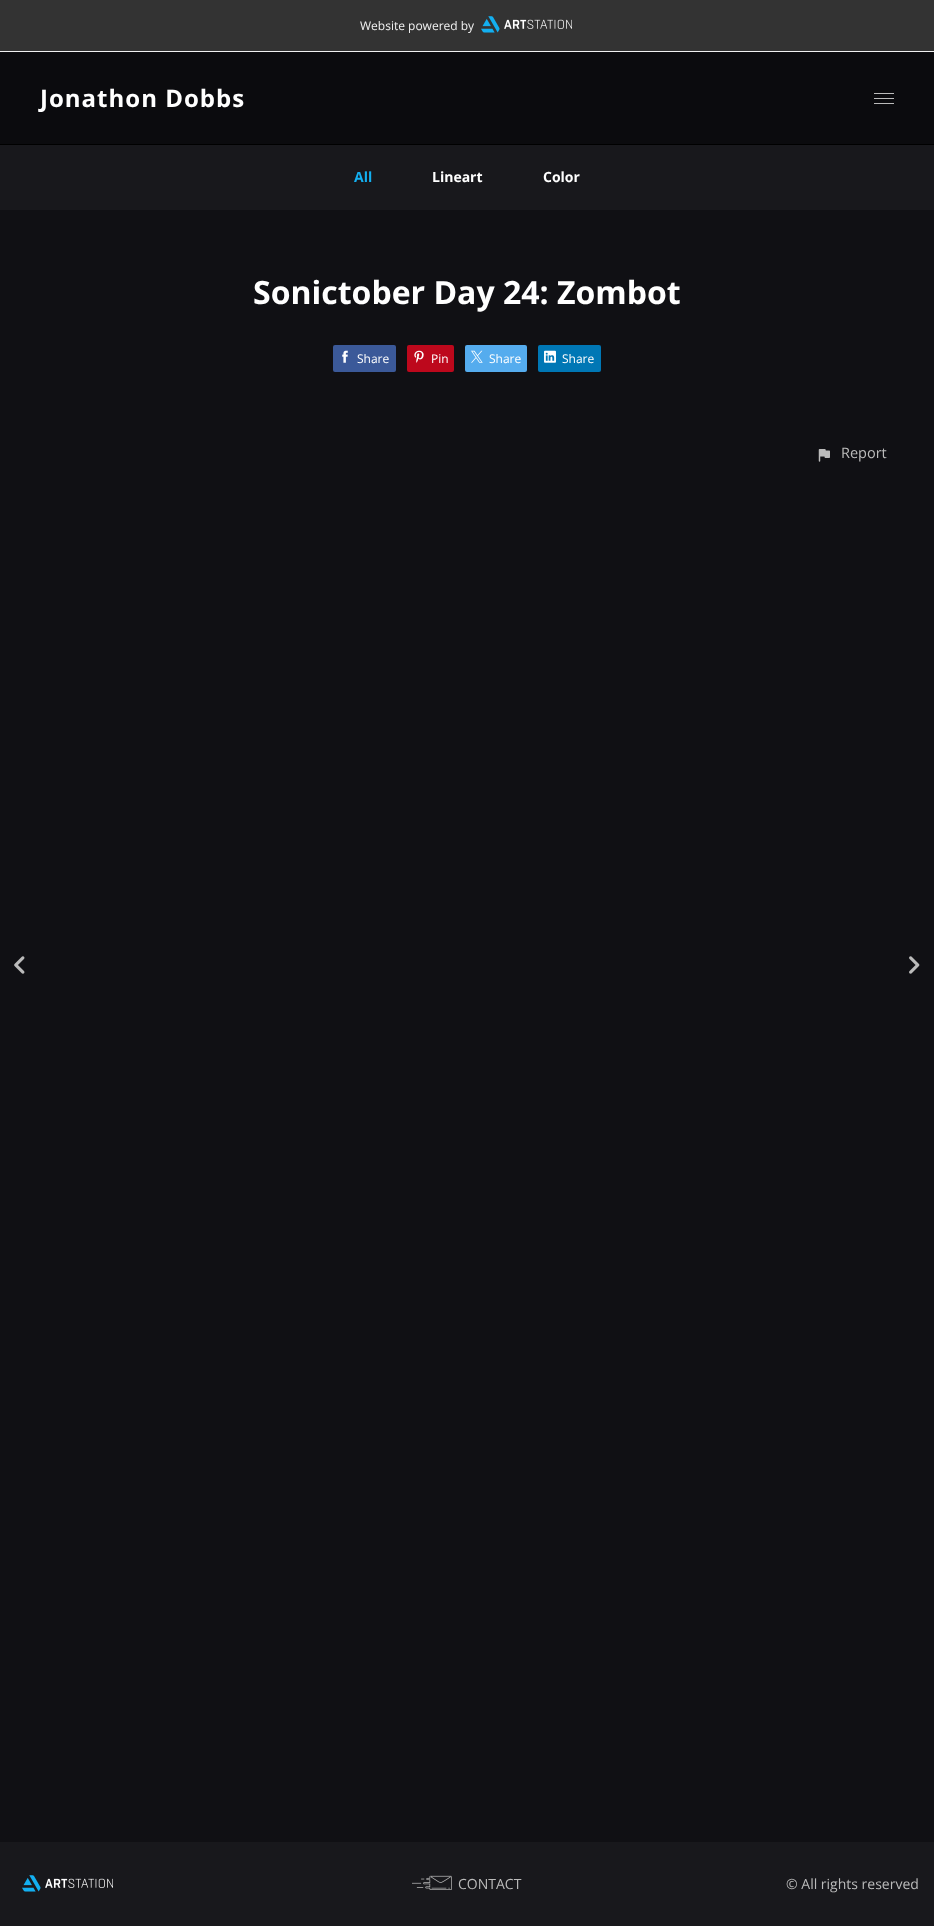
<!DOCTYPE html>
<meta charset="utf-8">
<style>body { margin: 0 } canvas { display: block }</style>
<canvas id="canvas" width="934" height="1926"></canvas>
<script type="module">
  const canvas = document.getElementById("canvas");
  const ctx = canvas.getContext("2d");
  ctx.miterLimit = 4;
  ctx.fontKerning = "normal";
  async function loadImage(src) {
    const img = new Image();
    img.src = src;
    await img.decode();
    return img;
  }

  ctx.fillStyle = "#101014";
  ctx.fillRect(0, 0, 934, 1926);
  ctx.fillStyle = "#333333";
  ctx.fillRect(0, 0, 934, 51);
  ctx.fillStyle = "#f1f1f1";
  ctx.fillRect(0, 51, 934, 1);
  ctx.font = "12px Open Sans";
  ctx.fillText("Website powered by", 360, 30);
  ctx.drawImage(await loadImage("img1.png"), 481, 16, 91, 17);
  ctx.fillStyle = "#0b0b0e";
  ctx.fillRect(0, 52, 934, 92);
  ctx.fillStyle = "#000000";
  ctx.fillRect(0, 144, 934, 1);
  ctx.letterSpacing = "1px";
  ctx.font = "bold 24px Open Sans";
  ctx.fillStyle = "#ffffff";
  ctx.fillText("Jonathon Dobbs", 40, 107);
  ctx.fillStyle = "#bbbbbb";
  ctx.fillRect(874, 93, 20, 1);
  ctx.fillRect(874, 98, 20, 1);
  ctx.fillRect(874, 103, 20, 1);
  ctx.fillStyle = "#18181c";
  ctx.fillRect(0, 145, 934, 65);
  ctx.letterSpacing = "0px";
  ctx.font = "bold 14px Open Sans";
  ctx.fillStyle = "#13aff0";
  ctx.fillText("All", 354, 182);
  ctx.fillStyle = "#ffffff";
  ctx.fillText("Lineart", 432, 182);
  ctx.fillText("Color", 543, 182);
  ctx.font = "bold 32px Open Sans";
  ctx.fillText("Sonictober Day 24: Zombot", 253, 304);
  ctx.fillStyle = "#3b5999";
  ctx.beginPath();
  ctx.roundRect(333, 345, 63, 27, 2);
  ctx.fill();
  ctx.drawImage(await loadImage("img2.png"), 342, 350, 6, 13);
  ctx.font = "12px Open Sans";
  ctx.fillStyle = "#ffffff";
  ctx.fillText("Share", 357, 363);
  ctx.fillStyle = "#bd081c";
  ctx.beginPath();
  ctx.roundRect(407, 345, 47, 27, 2);
  ctx.fill();
  ctx.drawImage(await loadImage("img3.png"), 414, 350, 10, 13);
  ctx.fillStyle = "#ffffff";
  ctx.fillText("Pin", 431, 363);
  ctx.fillStyle = "#55acee";
  ctx.beginPath();
  ctx.roundRect(465, 345, 62, 27, 2);
  ctx.fill();
  ctx.drawImage(await loadImage("img4.png"), 471, 350, 12, 13);
  ctx.fillStyle = "#ffffff";
  ctx.fillText("Share", 489, 363);
  ctx.fillStyle = "#0077b5";
  ctx.beginPath();
  ctx.roundRect(538, 345, 63, 27, 2);
  ctx.fill();
  ctx.drawImage(await loadImage("img5.png"), 544, 350, 12, 13);
  ctx.fillStyle = "#ffffff";
  ctx.fillText("Share", 562, 363);
  ctx.drawImage(await loadImage("img6.png"), 818, 449, 12, 13);
  ctx.font = "14.5px Open Sans";
  ctx.fillStyle = "#bbbbbb";
  ctx.fillText("Report", 841, 458);
  ctx.drawImage(await loadImage("img7.png"), 14, 956, 11, 18);
  ctx.drawImage(await loadImage("img8.png"), 909, 956, 11, 18);
  ctx.fillStyle = "#18181c";
  ctx.fillRect(0, 1842, 934, 84);
  ctx.drawImage(await loadImage("img9.png"), 22, 1875, 91, 17);
  ctx.drawImage(await loadImage("img10.png"), 412, 1875, 40, 15);
  ctx.font = "14px Open Sans";
  ctx.fillStyle = "#bbbbbb";
  ctx.fillText("CONTACT", 458, 1889);
  ctx.fillText("© All rights reserved", 786, 1889);
</script>
